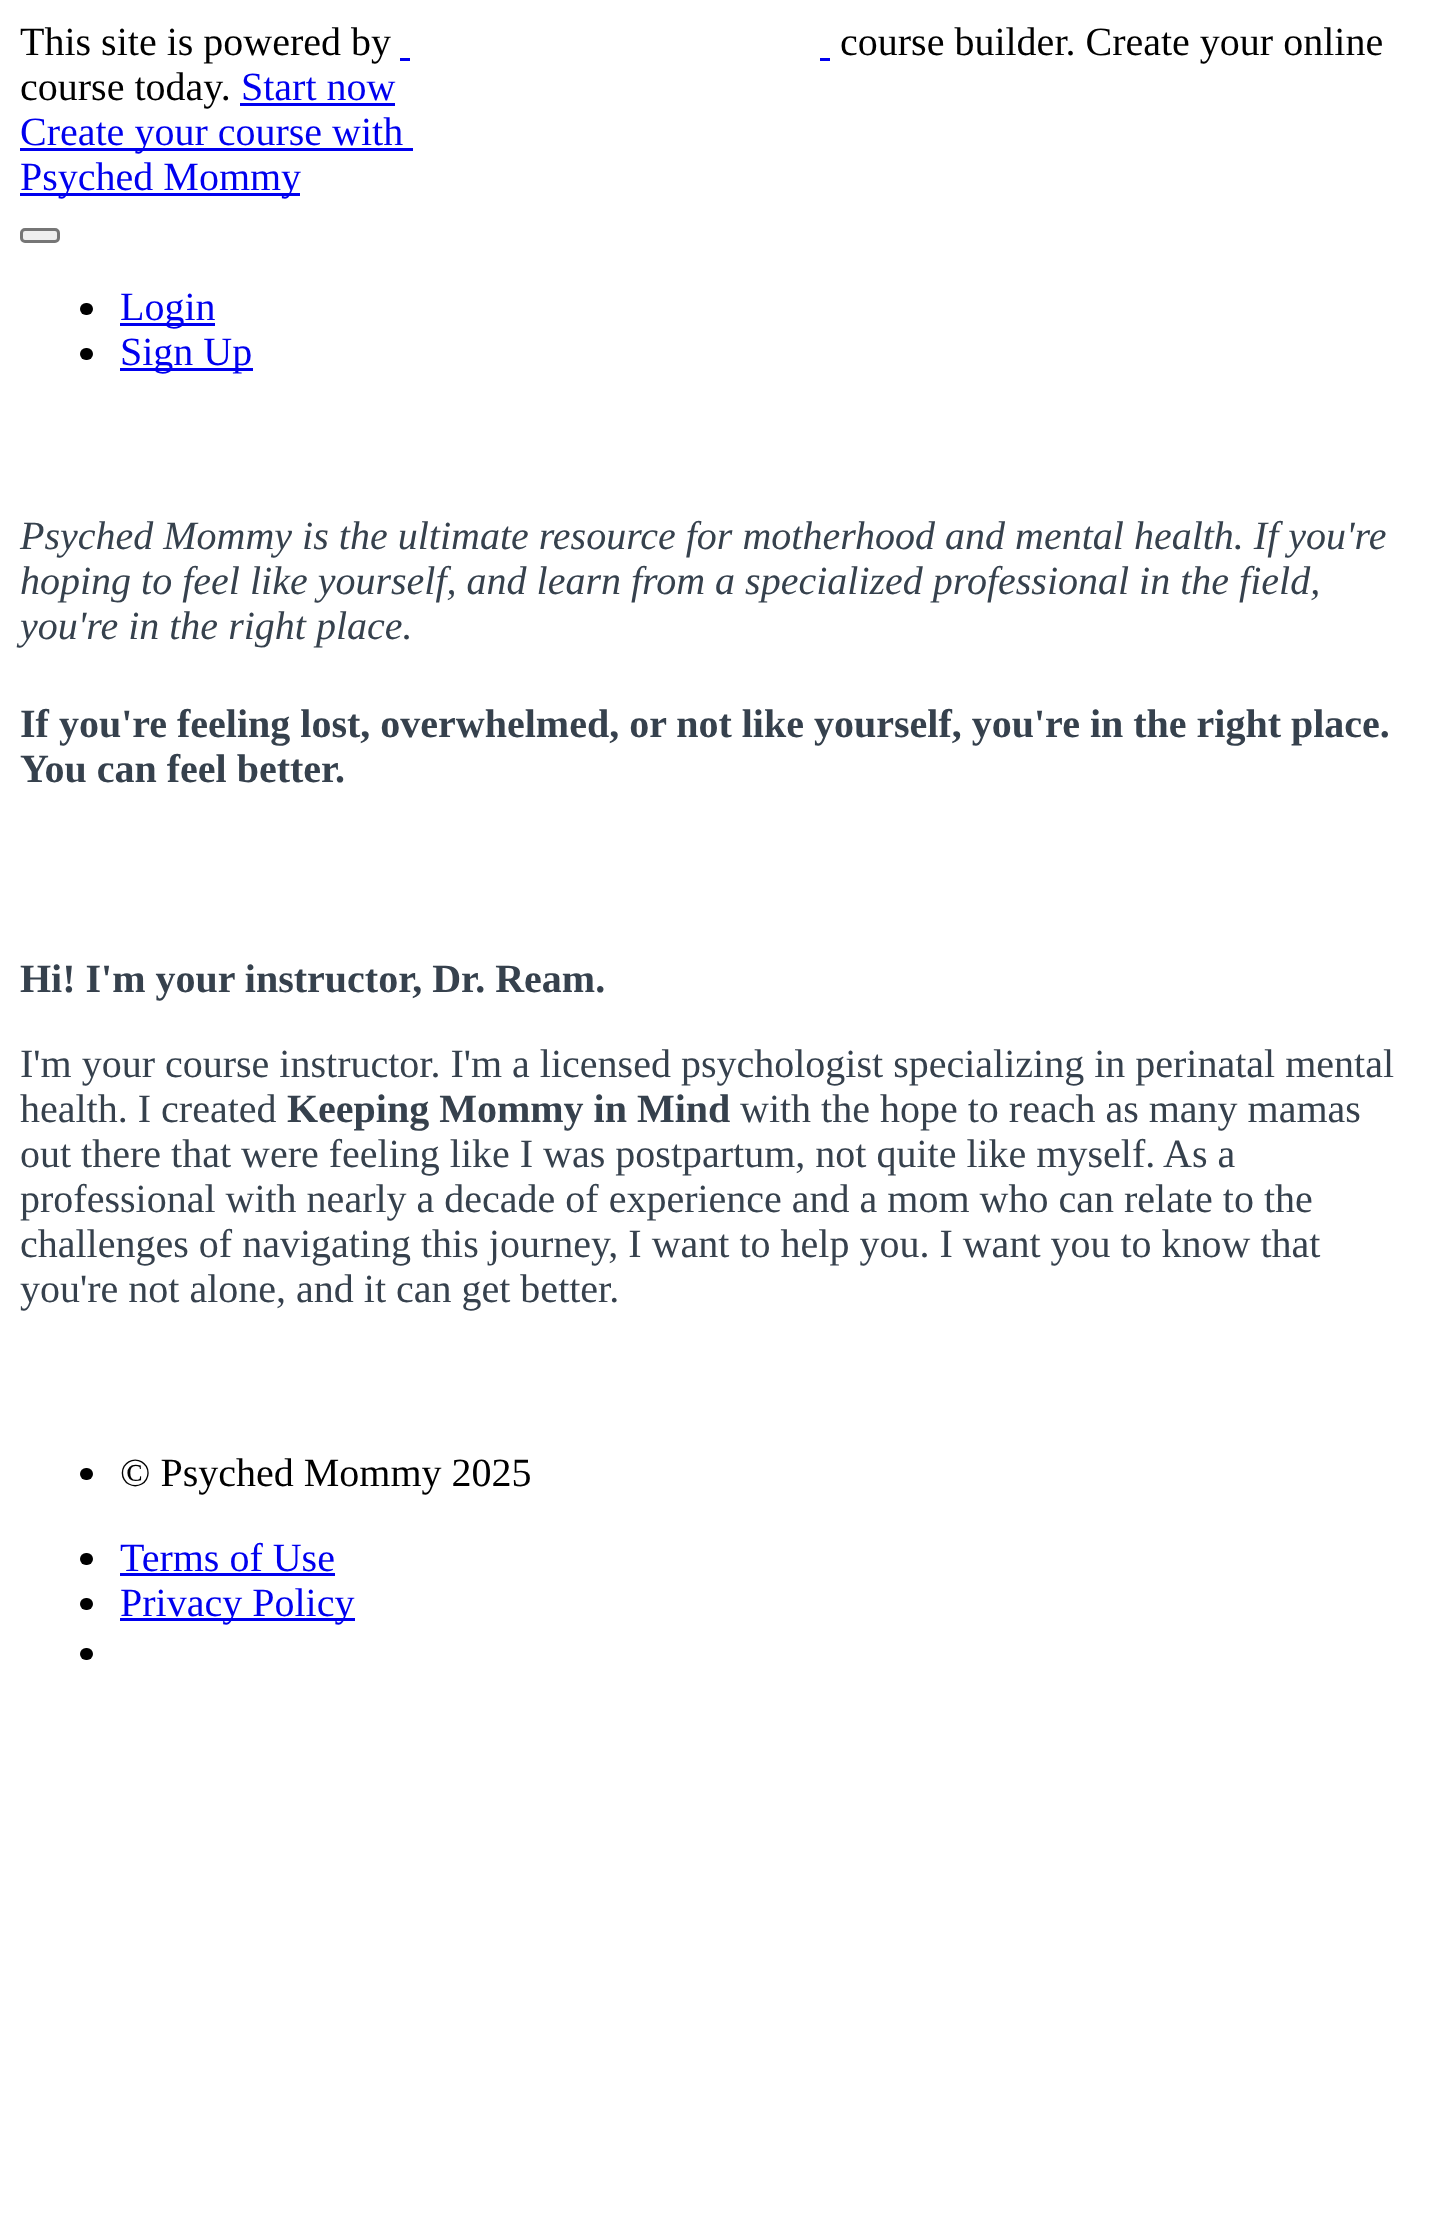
<!DOCTYPE html>
<meta charset="utf-8">
<style>body { margin: 0 } canvas { display: block }</style>
<canvas id="canvas" width="1438" height="2217"></canvas>
<script type="module">
  const canvas = document.getElementById("canvas");
  const ctx = canvas.getContext("2d");
  ctx.miterLimit = 4;
  ctx.fontKerning = "normal";

  ctx.fillStyle = "#ffffff";
  ctx.fillRect(0, 0, 1438, 2217);
  ctx.font = "40px Liberation Serif";
  ctx.fillStyle = "#000000";
  ctx.fillText("This site is powered by", 20, 55);
  ctx.fillStyle = "#0000ee";
  ctx.fillRect(400, 58, 10, 3);
  ctx.fillRect(820, 58, 10, 3);
  ctx.fillStyle = "#000000";
  ctx.fillText("course builder. Create your online", 840, 55);
  ctx.fillText("course today.", 20, 100);
  ctx.fillStyle = "#0000ee";
  ctx.fillText("Start now", 241, 100);
  ctx.fillRect(240, 103, 155, 3);
  ctx.fillRect(20, 148, 393, 3);
  ctx.fillText("Create your course with", 20, 145);
  ctx.fillRect(20, 193, 280, 3);
  ctx.fillText("Psyched Mommy", 20, 190);
  ctx.fillStyle = "#efefef";
  ctx.beginPath();
  ctx.roundRect(21.5, 229.5, 37, 12, 3.5);
  ctx.fill();
  ctx.strokeStyle = "#767676";
  ctx.lineWidth = 3;
  ctx.stroke();
  ctx.fillStyle = "#000000";
  ctx.beginPath();
  ctx.roundRect(80, 303, 13, 12, 6);
  ctx.fill();
  ctx.fillStyle = "#0000ee";
  ctx.fillRect(120, 323, 95, 3);
  ctx.fillText("Login", 120, 320);
  ctx.fillStyle = "#000000";
  ctx.beginPath();
  ctx.roundRect(80, 348, 13, 12, 6);
  ctx.fill();
  ctx.fillStyle = "#0000ee";
  ctx.fillRect(120, 368, 133, 3);
  ctx.fillText("Sign Up", 120, 365);
  ctx.font = "italic 40px Liberation Serif";
  ctx.fillStyle = "#36414d";
  ctx.fillText("Psyched Mommy is the ultimate resource for motherhood and mental health. If you're", 20, 549);
  ctx.fillText("hoping to feel like yourself, and learn from a specialized professional in the field,", 20, 594);
  ctx.fillText("you're in the right place.", 20, 639);
  ctx.font = "bold 40px Liberation Serif";
  ctx.fillText("If you're feeling lost, overwhelmed, or not like yourself, you're in the right place.", 20, 737);
  ctx.fillText("You can feel better.", 20, 782);
  ctx.fillText("Hi! I'm your instructor, Dr. Ream.", 20, 992);
  ctx.font = "40px Liberation Serif";
  ctx.fillText("I'm your course instructor. I'm a licensed psychologist specializing in perinatal mental", 20, 1077);
  ctx.fillText("health. I created", 20, 1122);
  ctx.font = "bold 40px Liberation Serif";
  ctx.fillText("Keeping Mommy in Mind", 287, 1122);
  ctx.font = "40px Liberation Serif";
  ctx.fillText("with the hope to reach as many mamas", 740, 1122);
  ctx.fillText("out there that were feeling like I was postpartum, not quite like myself. As a", 20, 1167);
  ctx.fillText("professional with nearly a decade of experience and a mom who can relate to the", 20, 1212);
  ctx.fillText("challenges of navigating this journey, I want to help you. I want you to know that", 20, 1257);
  ctx.fillText("you're not alone, and it can get better.", 20, 1302);
  ctx.fillStyle = "#000000";
  ctx.beginPath();
  ctx.roundRect(80, 1468, 13, 12, 6);
  ctx.fill();
  ctx.fillText("© Psyched Mommy 2025", 120, 1486);
  ctx.beginPath();
  ctx.roundRect(80, 1553, 13, 12, 6);
  ctx.fill();
  ctx.fillStyle = "#0000ee";
  ctx.fillText("Terms of Use", 120, 1571);
  ctx.fillRect(120, 1573, 215, 3);
  ctx.fillStyle = "#000000";
  ctx.beginPath();
  ctx.roundRect(80, 1598, 13, 12, 6);
  ctx.fill();
  ctx.fillStyle = "#0000ee";
  ctx.fillRect(120, 1618, 235, 3);
  ctx.fillText("Privacy Policy", 120, 1616);
  ctx.fillStyle = "#000000";
  ctx.beginPath();
  ctx.roundRect(80, 1648, 13, 12, 6);
  ctx.fill();
</script>
